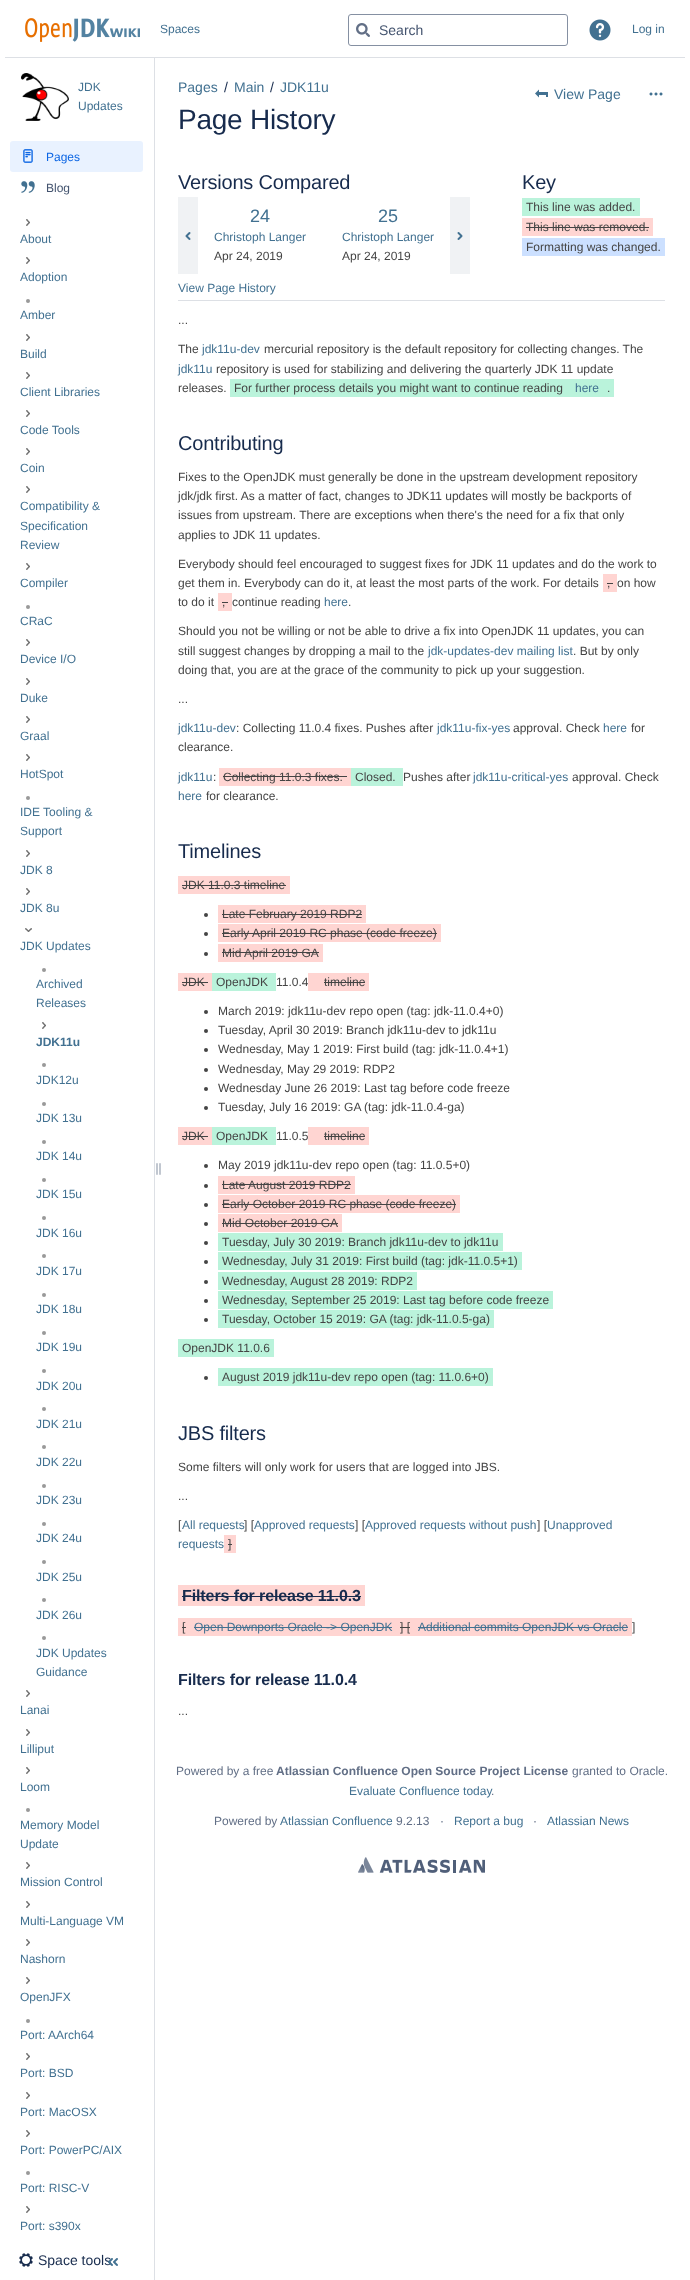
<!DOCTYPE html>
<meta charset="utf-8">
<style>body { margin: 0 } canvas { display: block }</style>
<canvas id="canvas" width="690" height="2280"></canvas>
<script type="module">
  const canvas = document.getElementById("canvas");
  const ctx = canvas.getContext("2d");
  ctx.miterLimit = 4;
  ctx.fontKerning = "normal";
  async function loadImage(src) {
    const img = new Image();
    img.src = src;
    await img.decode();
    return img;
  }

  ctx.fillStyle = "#ffffff";
  ctx.fillRect(0, 0, 690, 2280);
  ctx.fillStyle = "#dde0e5";
  ctx.fillRect(5, 57, 680, 1);
  ctx.drawImage(await loadImage("img1.png"), 25, 18, 115, 24);
  ctx.font = "12px Liberation Sans";
  ctx.fillStyle = "#427191";
  ctx.fillText("Spaces", 160, 33);
  ctx.beginPath();
  ctx.roundRect(348.5, 14.5, 219, 31, 2.5);
  ctx.strokeStyle = "#8590a2";
  ctx.stroke();
  ctx.drawImage(await loadImage("img2.png"), 356, 23, 14, 14);
  ctx.font = "14px Liberation Sans";
  ctx.fillStyle = "#44546f";
  ctx.fillText("Search", 379, 35);
  ctx.drawImage(await loadImage("img3.png"), 589, 19, 22, 22);
  ctx.font = "12px Liberation Sans";
  ctx.fillStyle = "#427191";
  ctx.fillText("Log in", 632, 33);
  ctx.drawImage(await loadImage("img4.png"), 21, 73, 48, 48);
  ctx.fillText("JDK", 78, 91);
  ctx.fillText("Updates", 78, 110);
  ctx.fillStyle = "#e9f2ff";
  ctx.beginPath();
  ctx.roundRect(10, 141, 133, 31, 3);
  ctx.fill();
  ctx.drawImage(await loadImage("img5.png"), 23, 149, 10, 14);
  ctx.fillStyle = "#0c66e4";
  ctx.fillText("Pages", 46, 161);
  ctx.drawImage(await loadImage("img6.png"), 21, 181, 14, 12);
  ctx.fillStyle = "#44546f";
  ctx.fillText("Blog", 46, 192);
  ctx.drawImage(await loadImage("img7.png"), 26, 219, 4, 7);
  ctx.fillStyle = "#427191";
  ctx.fillText("About", 20, 243);
  ctx.drawImage(await loadImage("img7.png"), 26, 257, 4, 7);
  ctx.fillText("Adoption", 20, 281);
  ctx.fillStyle = "#999999";
  ctx.beginPath();
  ctx.arc(28, 301, 2, 0, Math.PI * 2);
  ctx.fill();
  ctx.fillStyle = "#427191";
  ctx.fillText("Amber", 20, 319);
  ctx.drawImage(await loadImage("img7.png"), 26, 334, 4, 7);
  ctx.fillText("Build", 20, 358);
  ctx.drawImage(await loadImage("img7.png"), 26, 372, 4, 7);
  ctx.fillText("Client Libraries", 20, 396);
  ctx.drawImage(await loadImage("img7.png"), 26, 410, 4, 7);
  ctx.fillText("Code Tools", 20, 434);
  ctx.drawImage(await loadImage("img7.png"), 26, 448, 4, 7);
  ctx.fillText("Coin", 20, 472);
  ctx.drawImage(await loadImage("img7.png"), 26, 486, 4, 7);
  ctx.fillText("Compatibility &", 20, 510);
  ctx.fillText("Specification", 20, 530);
  ctx.fillText("Review", 20, 549);
  ctx.drawImage(await loadImage("img7.png"), 26, 563, 4, 7);
  ctx.fillText("Compiler", 20, 587);
  ctx.fillStyle = "#999999";
  ctx.beginPath();
  ctx.arc(28, 607, 2, 0, Math.PI * 2);
  ctx.fill();
  ctx.fillStyle = "#427191";
  ctx.fillText("CRaC", 20, 625);
  ctx.drawImage(await loadImage("img7.png"), 26, 639, 4, 7);
  ctx.fillText("Device I/O", 20, 663);
  ctx.drawImage(await loadImage("img7.png"), 26, 678, 4, 7);
  ctx.fillText("Duke", 20, 702);
  ctx.drawImage(await loadImage("img7.png"), 26, 716, 4, 7);
  ctx.fillText("Graal", 20, 740);
  ctx.drawImage(await loadImage("img7.png"), 26, 754, 4, 7);
  ctx.fillText("HotSpot", 20, 778);
  ctx.fillStyle = "#999999";
  ctx.beginPath();
  ctx.arc(28, 798, 2, 0, Math.PI * 2);
  ctx.fill();
  ctx.fillStyle = "#427191";
  ctx.fillText("IDE Tooling &", 20, 816);
  ctx.fillText("Support", 20, 835);
  ctx.drawImage(await loadImage("img7.png"), 26, 850, 4, 7);
  ctx.fillText("JDK 8", 20, 874);
  ctx.drawImage(await loadImage("img7.png"), 26, 888, 4, 7);
  ctx.fillText("JDK 8u", 20, 912);
  ctx.drawImage(await loadImage("img8.png"), 25, 928, 7, 4);
  ctx.fillText("JDK Updates", 20, 950);
  ctx.fillStyle = "#999999";
  ctx.beginPath();
  ctx.arc(44, 970, 2, 0, Math.PI * 2);
  ctx.fill();
  ctx.fillStyle = "#427191";
  ctx.fillText("Archived", 36, 988);
  ctx.fillText("Releases", 36, 1007);
  ctx.drawImage(await loadImage("img7.png"), 42, 1022, 4, 7);
  ctx.font = "bold 12px Liberation Sans";
  ctx.fillText("JDK11u", 36, 1046);
  ctx.fillStyle = "#999999";
  ctx.beginPath();
  ctx.arc(44, 1065, 2, 0, Math.PI * 2);
  ctx.fill();
  ctx.font = "12px Liberation Sans";
  ctx.fillStyle = "#427191";
  ctx.fillText("JDK12u", 36, 1084);
  ctx.fillStyle = "#999999";
  ctx.beginPath();
  ctx.arc(44, 1104, 2, 0, Math.PI * 2);
  ctx.fill();
  ctx.fillStyle = "#427191";
  ctx.fillText("JDK 13u", 36, 1122);
  ctx.fillStyle = "#999999";
  ctx.beginPath();
  ctx.arc(44, 1142, 2, 0, Math.PI * 2);
  ctx.fill();
  ctx.fillStyle = "#427191";
  ctx.fillText("JDK 14u", 36, 1160);
  ctx.fillStyle = "#999999";
  ctx.beginPath();
  ctx.arc(44, 1180, 2, 0, Math.PI * 2);
  ctx.fill();
  ctx.fillStyle = "#427191";
  ctx.fillText("JDK 15u", 36, 1198);
  ctx.fillStyle = "#999999";
  ctx.beginPath();
  ctx.arc(44, 1218, 2, 0, Math.PI * 2);
  ctx.fill();
  ctx.fillStyle = "#427191";
  ctx.fillText("JDK 16u", 36, 1237);
  ctx.fillStyle = "#999999";
  ctx.beginPath();
  ctx.arc(44, 1256, 2, 0, Math.PI * 2);
  ctx.fill();
  ctx.fillStyle = "#427191";
  ctx.fillText("JDK 17u", 36, 1275);
  ctx.fillStyle = "#999999";
  ctx.beginPath();
  ctx.arc(44, 1295, 2, 0, Math.PI * 2);
  ctx.fill();
  ctx.fillStyle = "#427191";
  ctx.fillText("JDK 18u", 36, 1313);
  ctx.fillStyle = "#999999";
  ctx.beginPath();
  ctx.arc(44, 1333, 2, 0, Math.PI * 2);
  ctx.fill();
  ctx.fillStyle = "#427191";
  ctx.fillText("JDK 19u", 36, 1351);
  ctx.fillStyle = "#999999";
  ctx.beginPath();
  ctx.arc(44, 1371, 2, 0, Math.PI * 2);
  ctx.fill();
  ctx.fillStyle = "#427191";
  ctx.fillText("JDK 20u", 36, 1390);
  ctx.fillStyle = "#999999";
  ctx.beginPath();
  ctx.arc(44, 1409, 2, 0, Math.PI * 2);
  ctx.fill();
  ctx.fillStyle = "#427191";
  ctx.fillText("JDK 21u", 36, 1428);
  ctx.fillStyle = "#999999";
  ctx.beginPath();
  ctx.arc(44, 1447, 2, 0, Math.PI * 2);
  ctx.fill();
  ctx.fillStyle = "#427191";
  ctx.fillText("JDK 22u", 36, 1466);
  ctx.fillStyle = "#999999";
  ctx.beginPath();
  ctx.arc(44, 1486, 2, 0, Math.PI * 2);
  ctx.fill();
  ctx.fillStyle = "#427191";
  ctx.fillText("JDK 23u", 36, 1504);
  ctx.fillStyle = "#999999";
  ctx.beginPath();
  ctx.arc(44, 1524, 2, 0, Math.PI * 2);
  ctx.fill();
  ctx.fillStyle = "#427191";
  ctx.fillText("JDK 24u", 36, 1542);
  ctx.fillStyle = "#999999";
  ctx.beginPath();
  ctx.arc(44, 1562, 2, 0, Math.PI * 2);
  ctx.fill();
  ctx.fillStyle = "#427191";
  ctx.fillText("JDK 25u", 36, 1581);
  ctx.fillStyle = "#999999";
  ctx.beginPath();
  ctx.arc(44, 1600, 2, 0, Math.PI * 2);
  ctx.fill();
  ctx.fillStyle = "#427191";
  ctx.fillText("JDK 26u", 36, 1619);
  ctx.fillStyle = "#999999";
  ctx.beginPath();
  ctx.arc(44, 1638, 2, 0, Math.PI * 2);
  ctx.fill();
  ctx.fillStyle = "#427191";
  ctx.fillText("JDK Updates", 36, 1657);
  ctx.fillText("Guidance", 36, 1676);
  ctx.drawImage(await loadImage("img7.png"), 26, 1690, 4, 7);
  ctx.fillText("Lanai", 20, 1714);
  ctx.drawImage(await loadImage("img7.png"), 26, 1729, 4, 7);
  ctx.fillText("Lilliput", 20, 1753);
  ctx.drawImage(await loadImage("img7.png"), 26, 1767, 4, 7);
  ctx.fillText("Loom", 20, 1791);
  ctx.fillStyle = "#999999";
  ctx.beginPath();
  ctx.arc(28, 1810, 2, 0, Math.PI * 2);
  ctx.fill();
  ctx.fillStyle = "#427191";
  ctx.fillText("Memory Model", 20, 1829);
  ctx.fillText("Update", 20, 1848);
  ctx.drawImage(await loadImage("img7.png"), 26, 1862, 4, 7);
  ctx.fillText("Mission Control", 20, 1886);
  ctx.drawImage(await loadImage("img7.png"), 26, 1901, 4, 7);
  ctx.fillText("Multi-Language VM", 20, 1925);
  ctx.drawImage(await loadImage("img7.png"), 26, 1939, 4, 7);
  ctx.fillText("Nashorn", 20, 1963);
  ctx.drawImage(await loadImage("img7.png"), 26, 1977, 4, 7);
  ctx.fillText("OpenJFX", 20, 2001);
  ctx.fillStyle = "#999999";
  ctx.beginPath();
  ctx.arc(28, 2021, 2, 0, Math.PI * 2);
  ctx.fill();
  ctx.fillStyle = "#427191";
  ctx.fillText("Port: AArch64", 20, 2039);
  ctx.drawImage(await loadImage("img7.png"), 26, 2053, 4, 7);
  ctx.fillText("Port: BSD", 20, 2077);
  ctx.drawImage(await loadImage("img7.png"), 26, 2092, 4, 7);
  ctx.fillText("Port: MacOSX", 20, 2116);
  ctx.drawImage(await loadImage("img7.png"), 26, 2130, 4, 7);
  ctx.fillText("Port: PowerPC/AIX", 20, 2154);
  ctx.fillStyle = "#999999";
  ctx.beginPath();
  ctx.arc(28, 2173, 2, 0, Math.PI * 2);
  ctx.fill();
  ctx.fillStyle = "#427191";
  ctx.fillText("Port: RISC-V", 20, 2192);
  ctx.drawImage(await loadImage("img7.png"), 26, 2206, 4, 7);
  ctx.fillText("Port: s390x", 20, 2230);
  ctx.drawImage(await loadImage("img9.png"), 156, 1163, 5, 12);
  ctx.fillStyle = "#dde0e5";
  ctx.fillRect(154, 58, 1, 2222);
  ctx.drawImage(await loadImage("img10.png"), 19, 2253, 14, 14);
  ctx.font = "14px Liberation Sans";
  ctx.fillStyle = "#172b4d";
  ctx.fillText("Space tools", 38, 2265);
  ctx.drawImage(await loadImage("img11.png"), 108, 2258, 10, 8);
  ctx.fillStyle = "#427191";
  ctx.fillText("Pages", 178, 92);
  ctx.fillStyle = "#172b4d";
  ctx.fillText("/", 224, 92);
  ctx.fillStyle = "#427191";
  ctx.fillText("Main", 234, 92);
  ctx.fillStyle = "#172b4d";
  ctx.fillText("/", 270, 92);
  ctx.fillStyle = "#427191";
  ctx.fillText("JDK11u", 280, 92);
  ctx.letterSpacing = "-0.25px";
  ctx.font = "28px Liberation Sans";
  ctx.fillStyle = "#172b4d";
  ctx.fillText("Page History", 178, 129);
  ctx.drawImage(await loadImage("img12.png"), 535, 89, 13, 9);
  ctx.letterSpacing = "0px";
  ctx.font = "14px Liberation Sans";
  ctx.fillStyle = "#427191";
  ctx.fillText("View Page", 554, 99);
  ctx.drawImage(await loadImage("img13.png"), 649, 92, 14, 4);
  ctx.fillStyle = "#dde0e5";
  ctx.fillRect(178, 300, 487, 1);
  ctx.letterSpacing = "-0.2px";
  ctx.font = "20px Liberation Sans";
  ctx.fillStyle = "#172b4d";
  ctx.fillText("Versions Compared", 178, 189);
  ctx.fillText("Key", 522, 189);
  ctx.fillStyle = "#baf3db";
  ctx.fillRect(522, 198, 118, 18);
  ctx.letterSpacing = "0px";
  ctx.font = "12px Liberation Sans";
  ctx.fillStyle = "#444444";
  ctx.fillText("This line was added.", 526, 211);
  ctx.fillStyle = "#ffd5d2";
  ctx.fillRect(522, 218, 131, 18);
  ctx.fillStyle = "#444444";
  ctx.fillText("This line was removed.", 526, 231);
  ctx.fillRect(526, 227, 123, 1);
  ctx.fillStyle = "#cce0ff";
  ctx.fillRect(522, 238, 143, 18);
  ctx.fillStyle = "#444444";
  ctx.fillText("Formatting was changed.", 526, 251);
  ctx.font = "18px Liberation Sans";
  ctx.fillStyle = "#427191";
  ctx.fillText("24", 250, 222);
  ctx.font = "12px Liberation Sans";
  ctx.fillText("Christoph Langer", 214, 241);
  ctx.fillStyle = "#444444";
  ctx.fillText("Apr 24, 2019", 214, 260);
  ctx.font = "18px Liberation Sans";
  ctx.fillStyle = "#427191";
  ctx.fillText("25", 378, 222);
  ctx.font = "12px Liberation Sans";
  ctx.fillText("Christoph Langer", 342, 241);
  ctx.fillStyle = "#444444";
  ctx.fillText("Apr 24, 2019", 342, 260);
  ctx.fillStyle = "#f0f2f4";
  ctx.fillRect(178, 197, 20, 77);
  ctx.drawImage(await loadImage("img14.png"), 185, 232, 6, 8);
  ctx.fillRect(450, 197, 20, 77);
  ctx.drawImage(await loadImage("img15.png"), 457, 232, 6, 8);
  ctx.fillStyle = "#427191";
  ctx.fillText("View Page History", 178, 292);
  ctx.fillStyle = "#444444";
  ctx.fillText("...", 178, 324);
  ctx.fillText("The", 178, 353);
  ctx.fillStyle = "#427191";
  ctx.fillText("jdk11u-dev", 202, 353);
  ctx.fillStyle = "#444444";
  ctx.fillText("mercurial repository is the default repository for collecting changes. The", 264, 353);
  ctx.fillStyle = "#427191";
  ctx.fillText("jdk11u", 178, 373);
  ctx.fillStyle = "#444444";
  ctx.fillText("repository is used for stabilizing and delivering the quarterly JDK 11 update", 216, 373);
  ctx.fillText("releases.", 178, 392);
  ctx.fillStyle = "#baf3db";
  ctx.fillRect(230, 379, 384, 18);
  ctx.fillStyle = "#444444";
  ctx.fillText("For further process details you might want to continue reading", 234, 392);
  ctx.fillStyle = "#427191";
  ctx.fillText("here", 575, 392);
  ctx.fillStyle = "#444444";
  ctx.fillText(".", 607, 392);
  ctx.letterSpacing = "-0.2px";
  ctx.font = "20px Liberation Sans";
  ctx.fillStyle = "#172b4d";
  ctx.fillText("Contributing", 178, 450);
  ctx.letterSpacing = "0px";
  ctx.font = "12px Liberation Sans";
  ctx.fillStyle = "#444444";
  ctx.fillText("Fixes to the OpenJDK must generally be done in the upstream development repository", 178, 481);
  ctx.fillText("jdk/jdk first. As a matter of fact, changes to JDK11 updates will mostly be backports of", 178, 500);
  ctx.fillText("issues from upstream. There are exceptions when there's the need for a fix that only", 178, 519);
  ctx.fillText("applies to JDK 11 updates.", 178, 539);
  ctx.fillText("Everybody should feel encouraged to suggest fixes for JDK 11 updates and do the work to", 178, 568);
  ctx.fillText("get them in. Everybody can do it, at least the most parts of the work. For details", 178, 587);
  ctx.fillStyle = "#ffd5d2";
  ctx.fillRect(603, 574, 14, 18);
  ctx.fillStyle = "#444444";
  ctx.fillText(",", 607, 587);
  ctx.fillRect(607, 583, 6, 1);
  ctx.fillText("on how", 617, 587);
  ctx.fillText("to do it", 178, 606);
  ctx.fillStyle = "#ffd5d2";
  ctx.fillRect(218, 593, 14, 18);
  ctx.fillStyle = "#444444";
  ctx.fillText(",", 222, 606);
  ctx.fillRect(222, 602, 6, 1);
  ctx.fillText("continue reading", 232, 606);
  ctx.fillStyle = "#427191";
  ctx.fillText("here", 324, 606);
  ctx.fillStyle = "#444444";
  ctx.fillText(".", 348, 606);
  ctx.fillText("Should you not be willing or not be able to drive a fix into OpenJDK 11 updates, you can", 178, 635);
  ctx.fillText("still suggest changes by dropping a mail to the", 178, 655);
  ctx.fillStyle = "#427191";
  ctx.fillText("jdk-updates-dev mailing list", 428, 655);
  ctx.fillStyle = "#444444";
  ctx.fillText(". But by only", 573, 655);
  ctx.fillText("doing that, you are at the grace of the community to pick up your suggestion.", 178, 674);
  ctx.fillText("...", 178, 703);
  ctx.fillStyle = "#427191";
  ctx.fillText("jdk11u-dev", 178, 732);
  ctx.fillStyle = "#444444";
  ctx.fillText(": Collecting 11.0.4 fixes. Pushes after", 236, 732);
  ctx.fillStyle = "#427191";
  ctx.fillText("jdk11u-fix-yes", 437, 732);
  ctx.fillStyle = "#444444";
  ctx.fillText("approval. Check", 513, 732);
  ctx.fillStyle = "#427191";
  ctx.fillText("here", 603, 732);
  ctx.fillStyle = "#444444";
  ctx.fillText("for", 631, 732);
  ctx.fillText("clearance.", 178, 751);
  ctx.fillStyle = "#427191";
  ctx.fillText("jdk11u", 178, 781);
  ctx.fillStyle = "#444444";
  ctx.fillText(":", 213, 781);
  ctx.fillStyle = "#ffd5d2";
  ctx.fillRect(219, 768, 132, 18);
  ctx.fillStyle = "#444444";
  ctx.fillText("Collecting 11.0.3 fixes.", 223, 781);
  ctx.fillRect(223, 776, 124, 1);
  ctx.fillStyle = "#baf3db";
  ctx.fillRect(351, 768, 52, 18);
  ctx.fillStyle = "#444444";
  ctx.fillText("Closed.", 355, 781);
  ctx.fillText("Pushes after", 403, 781);
  ctx.fillStyle = "#427191";
  ctx.fillText("jdk11u-critical-yes", 473, 781);
  ctx.fillStyle = "#444444";
  ctx.fillText("approval. Check", 572, 781);
  ctx.fillStyle = "#427191";
  ctx.fillText("here", 178, 800);
  ctx.fillStyle = "#444444";
  ctx.fillText("for clearance.", 206, 800);
  ctx.letterSpacing = "-0.2px";
  ctx.font = "20px Liberation Sans";
  ctx.fillStyle = "#172b4d";
  ctx.fillText("Timelines", 178, 858);
  ctx.fillStyle = "#ffd5d2";
  ctx.fillRect(178, 876, 112, 18);
  ctx.letterSpacing = "0px";
  ctx.font = "12px Liberation Sans";
  ctx.fillStyle = "#444444";
  ctx.fillText("JDK 11.0.3 timeline", 182, 889);
  ctx.fillRect(182, 885, 104, 1);
  ctx.beginPath();
  ctx.arc(206, 915, 2, 0, Math.PI * 2);
  ctx.fill();
  ctx.fillStyle = "#ffd5d2";
  ctx.fillRect(218, 905, 148, 18);
  ctx.fillStyle = "#444444";
  ctx.fillText("Late February 2019 RDP2", 222, 918);
  ctx.fillRect(222, 914, 140, 1);
  ctx.beginPath();
  ctx.arc(206, 934, 2, 0, Math.PI * 2);
  ctx.fill();
  ctx.fillStyle = "#ffd5d2";
  ctx.fillRect(218, 924, 223, 18);
  ctx.fillStyle = "#444444";
  ctx.fillText("Early April 2019 RC phase (code freeze)", 222, 937);
  ctx.fillRect(222, 933, 215, 1);
  ctx.beginPath();
  ctx.arc(206, 954, 2, 0, Math.PI * 2);
  ctx.fill();
  ctx.fillStyle = "#ffd5d2";
  ctx.fillRect(218, 944, 105, 18);
  ctx.fillStyle = "#444444";
  ctx.fillText("Mid April 2019 GA", 222, 957);
  ctx.fillRect(222, 952, 97, 1);
  ctx.fillStyle = "#ffd5d2";
  ctx.fillRect(178, 973, 34, 18);
  ctx.fillStyle = "#444444";
  ctx.fillText("JDK", 182, 986);
  ctx.fillRect(182, 982, 26, 1);
  ctx.fillStyle = "#baf3db";
  ctx.fillRect(212, 973, 64, 18);
  ctx.fillStyle = "#444444";
  ctx.fillText("OpenJDK", 216, 986);
  ctx.fillText("11.0.4", 276, 986);
  ctx.fillStyle = "#ffd5d2";
  ctx.fillRect(308, 973, 61, 18);
  ctx.fillStyle = "#444444";
  ctx.fillText("timeline", 324, 986);
  ctx.fillRect(324, 982, 41, 1);
  ctx.beginPath();
  ctx.arc(206, 1012, 2, 0, Math.PI * 2);
  ctx.fill();
  ctx.fillText("March 2019: jdk11u-dev repo open (tag: jdk-11.0.4+0)", 218, 1015);
  ctx.beginPath();
  ctx.arc(206, 1031, 2, 0, Math.PI * 2);
  ctx.fill();
  ctx.fillText("Tuesday, April 30 2019: Branch jdk11u-dev to jdk11u", 218, 1034);
  ctx.beginPath();
  ctx.arc(206, 1050, 2, 0, Math.PI * 2);
  ctx.fill();
  ctx.fillText("Wednesday, May 1 2019: First build (tag: jdk-11.0.4+1)", 218, 1053);
  ctx.beginPath();
  ctx.arc(206, 1070, 2, 0, Math.PI * 2);
  ctx.fill();
  ctx.fillText("Wednesday, May 29 2019: RDP2", 218, 1073);
  ctx.beginPath();
  ctx.arc(206, 1089, 2, 0, Math.PI * 2);
  ctx.fill();
  ctx.fillText("Wednesday June 26 2019: Last tag before code freeze", 218, 1092);
  ctx.beginPath();
  ctx.arc(206, 1108, 2, 0, Math.PI * 2);
  ctx.fill();
  ctx.fillText("Tuesday, July 16 2019: GA (tag: jdk-11.0.4-ga)", 218, 1111);
  ctx.fillStyle = "#ffd5d2";
  ctx.fillRect(178, 1127, 34, 18);
  ctx.fillStyle = "#444444";
  ctx.fillText("JDK", 182, 1140);
  ctx.fillRect(182, 1136, 26, 1);
  ctx.fillStyle = "#baf3db";
  ctx.fillRect(212, 1127, 64, 18);
  ctx.fillStyle = "#444444";
  ctx.fillText("OpenJDK", 216, 1140);
  ctx.fillText("11.0.5", 276, 1140);
  ctx.fillStyle = "#ffd5d2";
  ctx.fillRect(308, 1127, 61, 18);
  ctx.fillStyle = "#444444";
  ctx.fillText("timeline", 324, 1140);
  ctx.fillRect(324, 1136, 41, 1);
  ctx.beginPath();
  ctx.arc(206, 1166, 2, 0, Math.PI * 2);
  ctx.fill();
  ctx.fillText("May 2019 jdk11u-dev repo open (tag: 11.0.5+0)", 218, 1169);
  ctx.beginPath();
  ctx.arc(206, 1186, 2, 0, Math.PI * 2);
  ctx.fill();
  ctx.fillStyle = "#ffd5d2";
  ctx.fillRect(218, 1176, 137, 18);
  ctx.fillStyle = "#444444";
  ctx.fillText("Late August 2019 RDP2", 222, 1189);
  ctx.fillRect(222, 1184, 129, 1);
  ctx.beginPath();
  ctx.arc(206, 1205, 2, 0, Math.PI * 2);
  ctx.fill();
  ctx.fillStyle = "#ffd5d2";
  ctx.fillRect(218, 1195, 242, 18);
  ctx.fillStyle = "#444444";
  ctx.fillText("Early October 2019 RC phase (code freeze)", 222, 1208);
  ctx.fillRect(222, 1204, 234, 1);
  ctx.beginPath();
  ctx.arc(206, 1224, 2, 0, Math.PI * 2);
  ctx.fill();
  ctx.fillStyle = "#ffd5d2";
  ctx.fillRect(218, 1214, 124, 18);
  ctx.fillStyle = "#444444";
  ctx.fillText("Mid October 2019 GA", 222, 1227);
  ctx.fillRect(222, 1223, 116, 1);
  ctx.beginPath();
  ctx.arc(206, 1243, 2, 0, Math.PI * 2);
  ctx.fill();
  ctx.fillStyle = "#baf3db";
  ctx.fillRect(218, 1233, 285, 18);
  ctx.fillStyle = "#444444";
  ctx.fillText("Tuesday, July 30 2019: Branch jdk11u-dev to jdk11u", 222, 1246);
  ctx.beginPath();
  ctx.arc(206, 1262, 2, 0, Math.PI * 2);
  ctx.fill();
  ctx.fillStyle = "#baf3db";
  ctx.fillRect(218, 1252, 304, 18);
  ctx.fillStyle = "#444444";
  ctx.fillText("Wednesday, July 31 2019: First build (tag: jdk-11.0.5+1)", 222, 1265);
  ctx.beginPath();
  ctx.arc(206, 1282, 2, 0, Math.PI * 2);
  ctx.fill();
  ctx.fillStyle = "#baf3db";
  ctx.fillRect(218, 1272, 199, 18);
  ctx.fillStyle = "#444444";
  ctx.fillText("Wednesday, August 28 2019: RDP2", 222, 1285);
  ctx.beginPath();
  ctx.arc(206, 1301, 2, 0, Math.PI * 2);
  ctx.fill();
  ctx.fillStyle = "#baf3db";
  ctx.fillRect(218, 1291, 335, 18);
  ctx.fillStyle = "#444444";
  ctx.fillText("Wednesday, September 25 2019: Last tag before code freeze", 222, 1304);
  ctx.beginPath();
  ctx.arc(206, 1320, 2, 0, Math.PI * 2);
  ctx.fill();
  ctx.fillStyle = "#baf3db";
  ctx.fillRect(218, 1310, 276, 18);
  ctx.fillStyle = "#444444";
  ctx.fillText("Tuesday, October 15 2019: GA (tag: jdk-11.0.5-ga)", 222, 1323);
  ctx.fillStyle = "#baf3db";
  ctx.fillRect(178, 1339, 96, 18);
  ctx.fillStyle = "#444444";
  ctx.fillText("OpenJDK 11.0.6", 182, 1352);
  ctx.beginPath();
  ctx.arc(206, 1378, 2, 0, Math.PI * 2);
  ctx.fill();
  ctx.fillStyle = "#baf3db";
  ctx.fillRect(218, 1368, 275, 18);
  ctx.fillStyle = "#444444";
  ctx.fillText("August 2019 jdk11u-dev repo open (tag: 11.0.6+0)", 222, 1381);
  ctx.letterSpacing = "-0.2px";
  ctx.font = "20px Liberation Sans";
  ctx.fillStyle = "#172b4d";
  ctx.fillText("JBS filters", 178, 1440);
  ctx.letterSpacing = "0px";
  ctx.font = "12px Liberation Sans";
  ctx.fillStyle = "#444444";
  ctx.fillText("Some filters will only work for users that are logged into JBS.", 178, 1471);
  ctx.fillText("...", 178, 1500);
  ctx.fillText("[", 178, 1529);
  ctx.fillStyle = "#427191";
  ctx.fillText("All requests", 182, 1529);
  ctx.fillStyle = "#444444";
  ctx.fillText("] [", 244, 1529);
  ctx.fillStyle = "#427191";
  ctx.fillText("Approved requests", 254, 1529);
  ctx.fillStyle = "#444444";
  ctx.fillText("] [", 355, 1529);
  ctx.fillStyle = "#427191";
  ctx.fillText("Approved requests without push", 365, 1529);
  ctx.fillStyle = "#444444";
  ctx.fillText("] [", 537, 1529);
  ctx.fillStyle = "#427191";
  ctx.fillText("Unapproved", 547, 1529);
  ctx.fillText("requests", 178, 1548);
  ctx.fillStyle = "#ffd5d2";
  ctx.fillRect(224, 1535, 12, 18);
  ctx.fillStyle = "#444444";
  ctx.fillText("]", 228, 1548);
  ctx.fillRect(228, 1544, 4, 1);
  ctx.fillStyle = "#ffd5d2";
  ctx.fillRect(178, 1585, 187, 21);
  ctx.letterSpacing = "-0.1px";
  ctx.font = "bold 16px Liberation Sans";
  ctx.fillStyle = "#172b4d";
  ctx.fillText("Filters for release 11.0.3", 182, 1601);
  ctx.fillRect(182, 1596, 179, 1);
  ctx.fillStyle = "#ffd5d2";
  ctx.fillRect(178, 1618, 454, 18);
  ctx.letterSpacing = "0px";
  ctx.font = "12px Liberation Sans";
  ctx.fillStyle = "#444444";
  ctx.fillText("[", 182, 1631);
  ctx.fillRect(182, 1627, 4, 1);
  ctx.fillStyle = "#427191";
  ctx.fillText("Open Downports Oracle -> OpenJDK", 194, 1631);
  ctx.fillRect(194, 1627, 198, 1);
  ctx.fillStyle = "#444444";
  ctx.fillText("] [", 400, 1631);
  ctx.fillRect(400, 1627, 10, 1);
  ctx.fillStyle = "#427191";
  ctx.fillText("Additional commits OpenJDK vs Oracle", 418, 1631);
  ctx.fillRect(418, 1627, 210, 1);
  ctx.fillStyle = "#444444";
  ctx.fillText("]", 632, 1631);
  ctx.letterSpacing = "-0.1px";
  ctx.font = "bold 16px Liberation Sans";
  ctx.fillStyle = "#172b4d";
  ctx.fillText("Filters for release 11.0.4", 178, 1685);
  ctx.letterSpacing = "0px";
  ctx.font = "12px Liberation Sans";
  ctx.fillStyle = "#444444";
  ctx.fillText("...", 178, 1715);
  ctx.fillStyle = "#626f86";
  ctx.fillText("Powered by a free", 176, 1775);
  ctx.font = "bold 12px Liberation Sans";
  ctx.fillText("Atlassian Confluence Open Source Project License", 276, 1775);
  ctx.font = "12px Liberation Sans";
  ctx.fillText("granted to Oracle.", 572, 1775);
  ctx.fillStyle = "#427191";
  ctx.fillText("Evaluate Confluence today", 349, 1795);
  ctx.fillStyle = "#626f86";
  ctx.fillText(".", 491, 1795);
  ctx.fillText("Powered by", 214, 1825);
  ctx.fillStyle = "#427191";
  ctx.fillText("Atlassian Confluence", 280, 1825);
  ctx.fillStyle = "#626f86";
  ctx.fillText("9.2.13", 396, 1825);
  ctx.fillText("·", 440, 1825);
  ctx.fillStyle = "#427191";
  ctx.fillText("Report a bug", 454, 1825);
  ctx.fillStyle = "#626f86";
  ctx.fillText("·", 533, 1825);
  ctx.fillStyle = "#427191";
  ctx.fillText("Atlassian News", 547, 1825);
  ctx.drawImage(await loadImage("img16.png"), 358, 1857, 127, 16);
</script>
